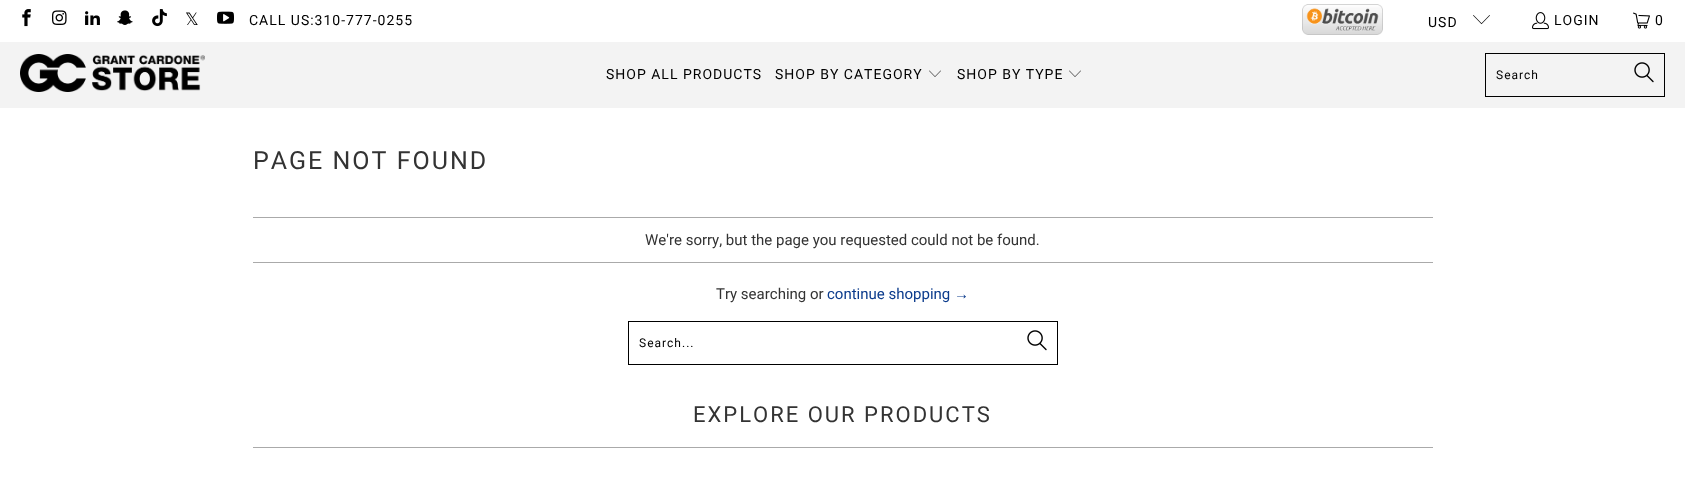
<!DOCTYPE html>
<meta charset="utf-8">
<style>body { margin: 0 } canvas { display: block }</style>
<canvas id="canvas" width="1685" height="486"></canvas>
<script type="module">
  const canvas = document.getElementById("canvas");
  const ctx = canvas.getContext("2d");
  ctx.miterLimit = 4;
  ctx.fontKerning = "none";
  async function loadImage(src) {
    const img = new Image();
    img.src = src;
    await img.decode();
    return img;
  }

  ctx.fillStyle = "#ffffff";
  ctx.fillRect(0, 0, 1685, 486);
  ctx.drawImage(await loadImage("img1.png"), 22, 9, 9, 18);
  ctx.drawImage(await loadImage("img2.png"), 52, 10, 15, 15);
  ctx.drawImage(await loadImage("img3.png"), 85, 11, 15, 14);
  ctx.drawImage(await loadImage("img4.png"), 117, 10, 16, 15);
  ctx.drawImage(await loadImage("img5.png"), 152, 9, 15, 18);
  ctx.letterSpacing = "1px";
  ctx.font = "17px DejaVu Sans";
  ctx.fillStyle = "#000000";
  ctx.fillText("𝕏", 185, 25);
  ctx.drawImage(await loadImage("img6.png"), 217, 11, 17, 13);
  ctx.font = "14px Roboto";
  ctx.fillText("CALL US:310-777-0255", 249, 25);
  ctx.drawImage(await loadImage("img7.png"), 1302, 4, 81, 31);
  ctx.fillText("USD", 1428, 27);
  ctx.drawImage(await loadImage("img8.png"), 1473, 15, 17, 10);
  ctx.drawImage(await loadImage("img9.png"), 1532, 12, 17, 18);
  ctx.fillText("LOGIN", 1554, 25);
  ctx.drawImage(await loadImage("img10.png"), 1633, 12, 17, 17);
  ctx.fillText("0", 1655, 25);
  ctx.fillStyle = "#f3f3f3";
  ctx.fillRect(0, 42, 1685, 66);
  ctx.drawImage(await loadImage("img11.png"), 20, 54, 185, 38);
  ctx.fillStyle = "#000000";
  ctx.fillText("SHOP ALL PRODUCTS", 606, 79);
  ctx.fillText("SHOP BY CATEGORY", 775, 79);
  ctx.drawImage(await loadImage("img12.png"), 929, 70, 12, 7);
  ctx.fillText("SHOP BY TYPE", 957, 79);
  ctx.drawImage(await loadImage("img12.png"), 1069, 70, 12, 7);
  ctx.strokeStyle = "#000000";
  ctx.strokeRect(1485.5, 53.5, 179, 43);
  ctx.font = "12px Roboto";
  ctx.fillText("Search", 1496, 79);
  ctx.drawImage(await loadImage("img13.png"), 1634, 62, 20, 21);
  ctx.letterSpacing = "2px";
  ctx.font = "25px Roboto";
  ctx.fillStyle = "#333333";
  ctx.fillText("PAGE NOT FOUND", 253, 169);
  ctx.fillStyle = "#aaaaaa";
  ctx.fillRect(253, 217, 1180, 1);
  ctx.fillRect(253, 262, 1180, 1);
  ctx.letterSpacing = "0px";
  ctx.font = "15px Roboto";
  ctx.fillStyle = "#333333";
  ctx.fillText("We're sorry, but the page you requested could not be found.", 645, 245);
  ctx.fillText("Try searching or", 716, 299);
  ctx.fillStyle = "#0b3b8c";
  ctx.fillText("continue shopping", 827, 299);
  ctx.font = "15px Liberation Sans";
  ctx.fillText("→", 954, 299);
  ctx.strokeRect(628.5, 321.5, 429, 43);
  ctx.letterSpacing = "1px";
  ctx.font = "12px Roboto";
  ctx.fillStyle = "#000000";
  ctx.fillText("Search...", 639, 347);
  ctx.drawImage(await loadImage("img14.png"), 1027, 330, 20, 21);
  ctx.letterSpacing = "2px";
  ctx.font = "22px Roboto";
  ctx.fillStyle = "#333333";
  ctx.fillText("EXPLORE OUR PRODUCTS", 693, 422);
  ctx.fillStyle = "#aaaaaa";
  ctx.fillRect(253, 447, 1180, 1);
</script>
